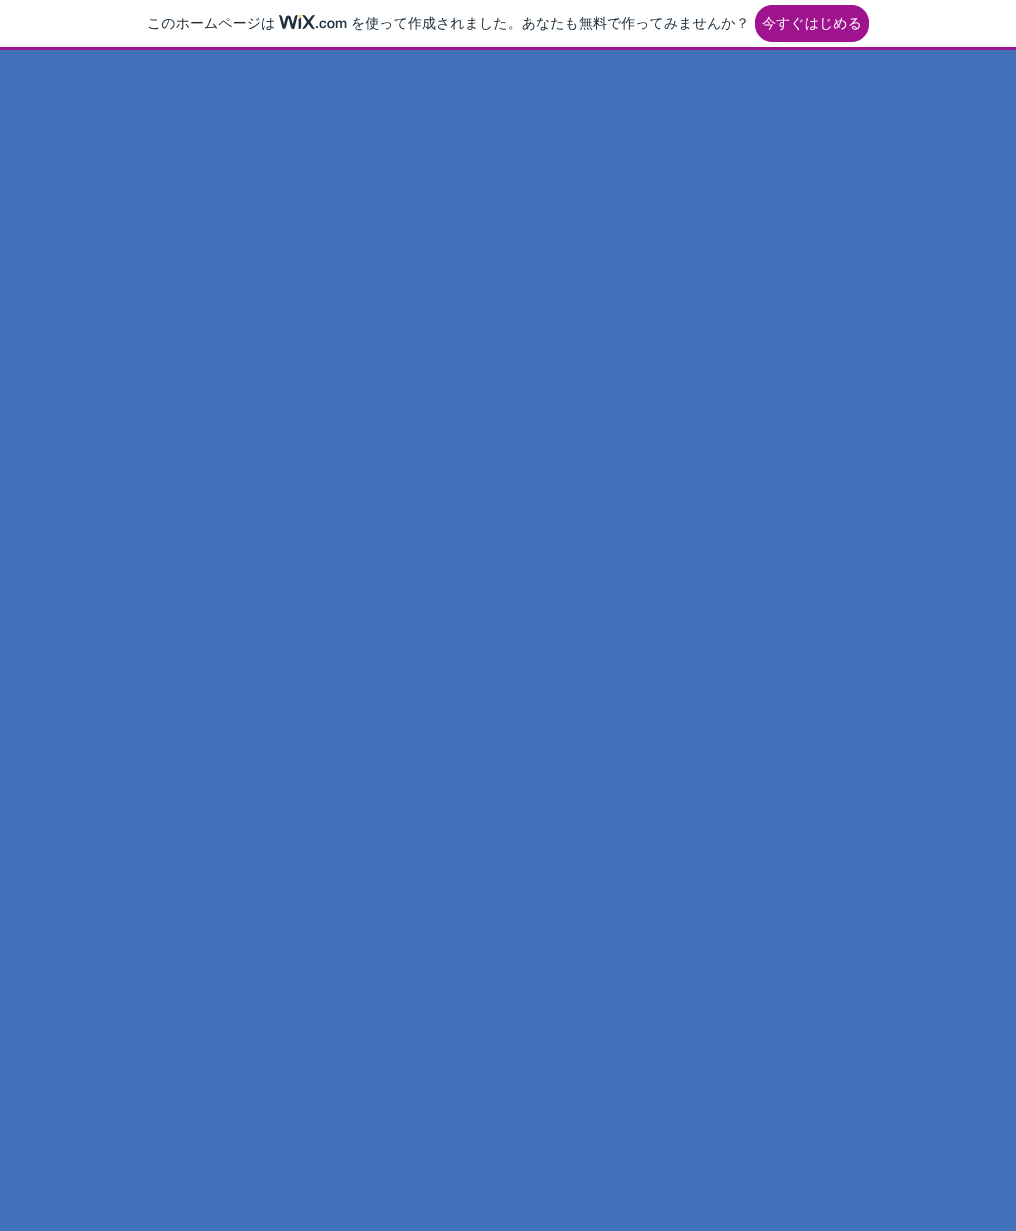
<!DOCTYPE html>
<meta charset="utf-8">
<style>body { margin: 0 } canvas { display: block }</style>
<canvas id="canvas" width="1016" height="1231"></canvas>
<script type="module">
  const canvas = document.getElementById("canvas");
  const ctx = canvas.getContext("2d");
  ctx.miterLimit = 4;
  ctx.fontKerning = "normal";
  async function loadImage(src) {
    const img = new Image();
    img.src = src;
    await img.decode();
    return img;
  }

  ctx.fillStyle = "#ffffff";
  ctx.fillRect(0, 0, 1016, 1231);
  ctx.fillStyle = "#a0138e";
  ctx.fillRect(0, 47, 1016, 3);
  ctx.font = "500 14px WenQuanYi Zen Hei";
  ctx.fillStyle = "#20303c";
  ctx.fillText("このホームページは", 147, 28);
  ctx.drawImage(await loadImage("img1.png"), 279, 15, 36, 15);
  ctx.font = "500 14px 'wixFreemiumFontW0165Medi'";
  ctx.fillText(".com", 315, 28);
  ctx.font = "500 14px WenQuanYi Zen Hei";
  ctx.fillText("を使って作成されました。あなたも無料で作ってみませんか？", 351, 28);
  ctx.fillStyle = "#a0138e";
  ctx.beginPath();
  ctx.roundRect(755.5, 5.5, 113, 36, 16.5);
  ctx.fill();
  ctx.strokeStyle = "#a0138e";
  ctx.stroke();
  ctx.fillStyle = "#ffffff";
  ctx.fillText("今すぐはじめる", 762, 28);
  ctx.fillStyle = "#4171ba";
  ctx.fillRect(0, 50, 1016, 1181);
</script>
